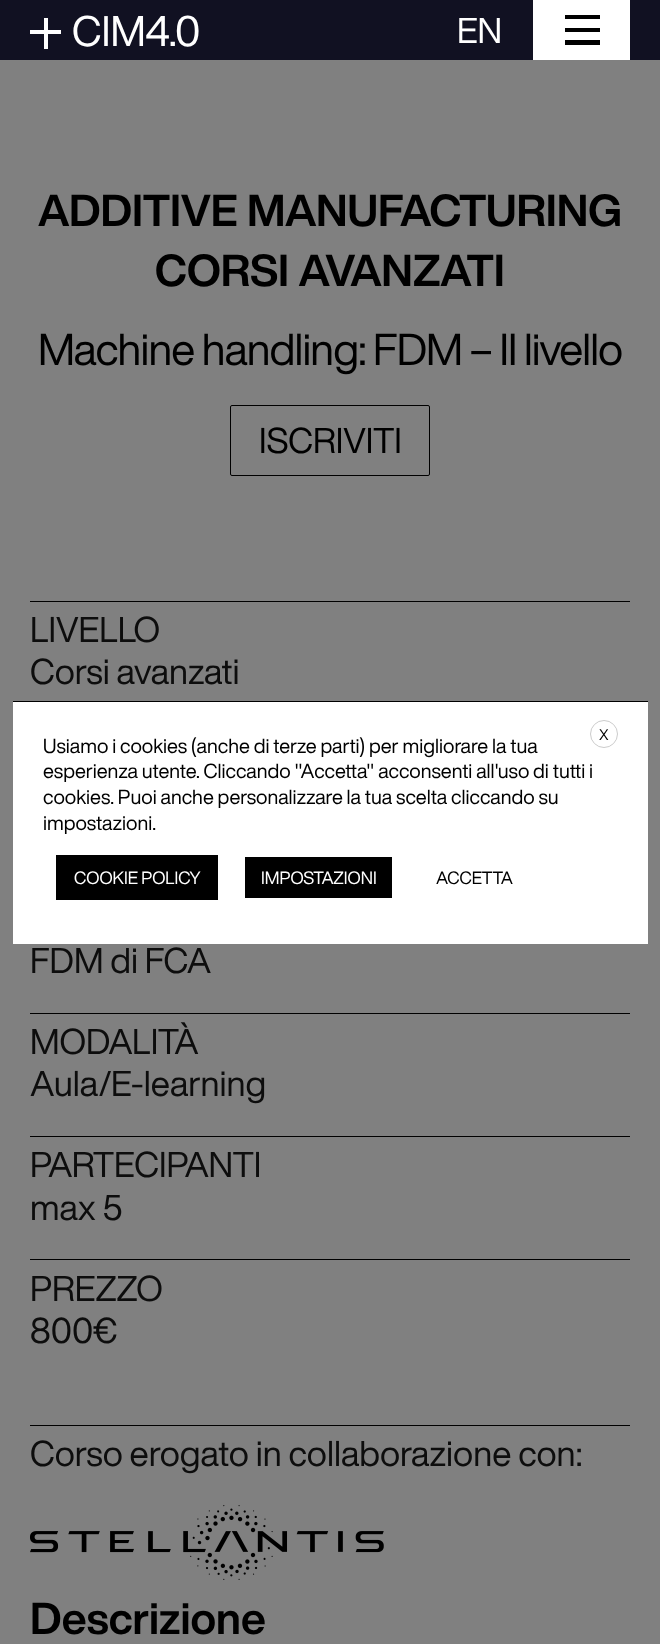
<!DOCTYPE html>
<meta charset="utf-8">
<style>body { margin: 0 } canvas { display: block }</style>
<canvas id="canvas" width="660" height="1644"></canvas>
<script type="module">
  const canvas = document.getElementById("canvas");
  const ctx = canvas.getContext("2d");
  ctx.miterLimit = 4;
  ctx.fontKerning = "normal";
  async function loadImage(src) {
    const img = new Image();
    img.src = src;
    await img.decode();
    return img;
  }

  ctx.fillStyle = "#808080";
  ctx.fillRect(0, 0, 660, 1644);
  ctx.fillStyle = "#111122";
  ctx.fillRect(0, 0, 660, 60);
  ctx.fillStyle = "#ffffff";
  ctx.fillRect(30, 30, 31, 4);
  ctx.fillRect(44, 18, 4, 31);
  ctx.font = "42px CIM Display";
  ctx.fillText("CIM4.0", 72, 46);
  ctx.font = "35.25px CIM Display";
  ctx.fillText("EN", 457, 43);
  ctx.fillRect(533, 0, 97, 60);
  ctx.fillStyle = "#000000";
  ctx.fillRect(565, 15, 35, 4);
  ctx.fillRect(565, 28, 35, 4);
  ctx.fillRect(565, 40, 35, 5);
  ctx.font = "bold 44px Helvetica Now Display";
  ctx.fillText("ADDITIVE MANUFACTURING", 38, 226);
  ctx.fillText("CORSI AVANZATI", 155, 286);
  ctx.letterSpacing = "-0.9px";
  ctx.font = "44px CIM Display";
  ctx.fillText("Machine handling: FDM – II livello", 38, 365);
  ctx.beginPath();
  ctx.roundRect(230.5, 405.5, 199, 70, 1.5);
  ctx.strokeStyle = "#000000";
  ctx.stroke();
  ctx.letterSpacing = "0px";
  ctx.font = "35.25px CIM Display";
  ctx.fillText("ISCRIVITI", 259, 453);
  ctx.fillRect(30, 601, 600, 1);
  ctx.fillStyle = "#0d0d0d";
  ctx.fillText("LIVELLO", 30, 642);
  ctx.fillText("Corsi avanzati", 30, 684);
  ctx.fillText("FDM di FCA", 30, 973);
  ctx.fillStyle = "#000000";
  ctx.fillRect(30, 1013, 600, 1);
  ctx.fillStyle = "#0d0d0d";
  ctx.fillText("MODALITÀ", 30, 1054);
  ctx.fillText("Aula/E-learning", 30, 1096);
  ctx.fillStyle = "#000000";
  ctx.fillRect(30, 1136, 600, 1);
  ctx.fillStyle = "#0d0d0d";
  ctx.fillText("PARTECIPANTI", 30, 1177);
  ctx.fillText("max 5", 30, 1220);
  ctx.fillStyle = "#000000";
  ctx.fillRect(30, 1259, 600, 1);
  ctx.fillStyle = "#0d0d0d";
  ctx.fillText("PREZZO", 30, 1301);
  ctx.fillText("800€", 30, 1343);
  ctx.fillStyle = "#000000";
  ctx.fillRect(30, 1425, 600, 1);
  ctx.fillStyle = "#0d0d0d";
  ctx.fillText("Corso erogato in collaborazione con:", 30, 1466);
  ctx.drawImage(await loadImage("img1.png"), 30, 1505, 354, 75);
  ctx.font = "bold 44px Helvetica Now Display";
  ctx.fillStyle = "#000000";
  ctx.fillText("Descrizione", 30, 1634);
  ctx.fillStyle = "#ffffff";
  ctx.fillRect(13, 702, 635, 242);
  ctx.fillStyle = "#000000";
  ctx.fillRect(13, 701, 635, 1);
  ctx.beginPath();
  ctx.arc(604, 734, 13.5, 0, Math.PI * 2);
  ctx.strokeStyle = "#cccccc";
  ctx.stroke();
  ctx.font = "15px CIM Display";
  ctx.fillText("X", 599, 740);
  ctx.font = "20px CIM Display";
  ctx.fillText("Usiamo i cookies (anche di terze parti) per migliorare la tua", 43, 753);
  ctx.fillText("esperienza utente. Cliccando \"Accetta\" acconsenti all'uso di tutti i", 43, 778);
  ctx.fillText("cookies. Puoi anche personalizzare la tua scelta cliccando su", 43, 804);
  ctx.fillText("impostazioni.", 43, 830);
  ctx.fillRect(56, 855, 162, 45);
  ctx.font = "17.5px CIM Display";
  ctx.fillStyle = "#ffffff";
  ctx.fillText("COOKIE POLICY", 74, 884);
  ctx.fillStyle = "#000000";
  ctx.fillRect(245, 857, 147, 41);
  ctx.fillStyle = "#ffffff";
  ctx.fillText("IMPOSTAZIONI", 261, 884);
  ctx.fillStyle = "#000000";
  ctx.fillText("ACCETTA", 436, 884);
</script>
